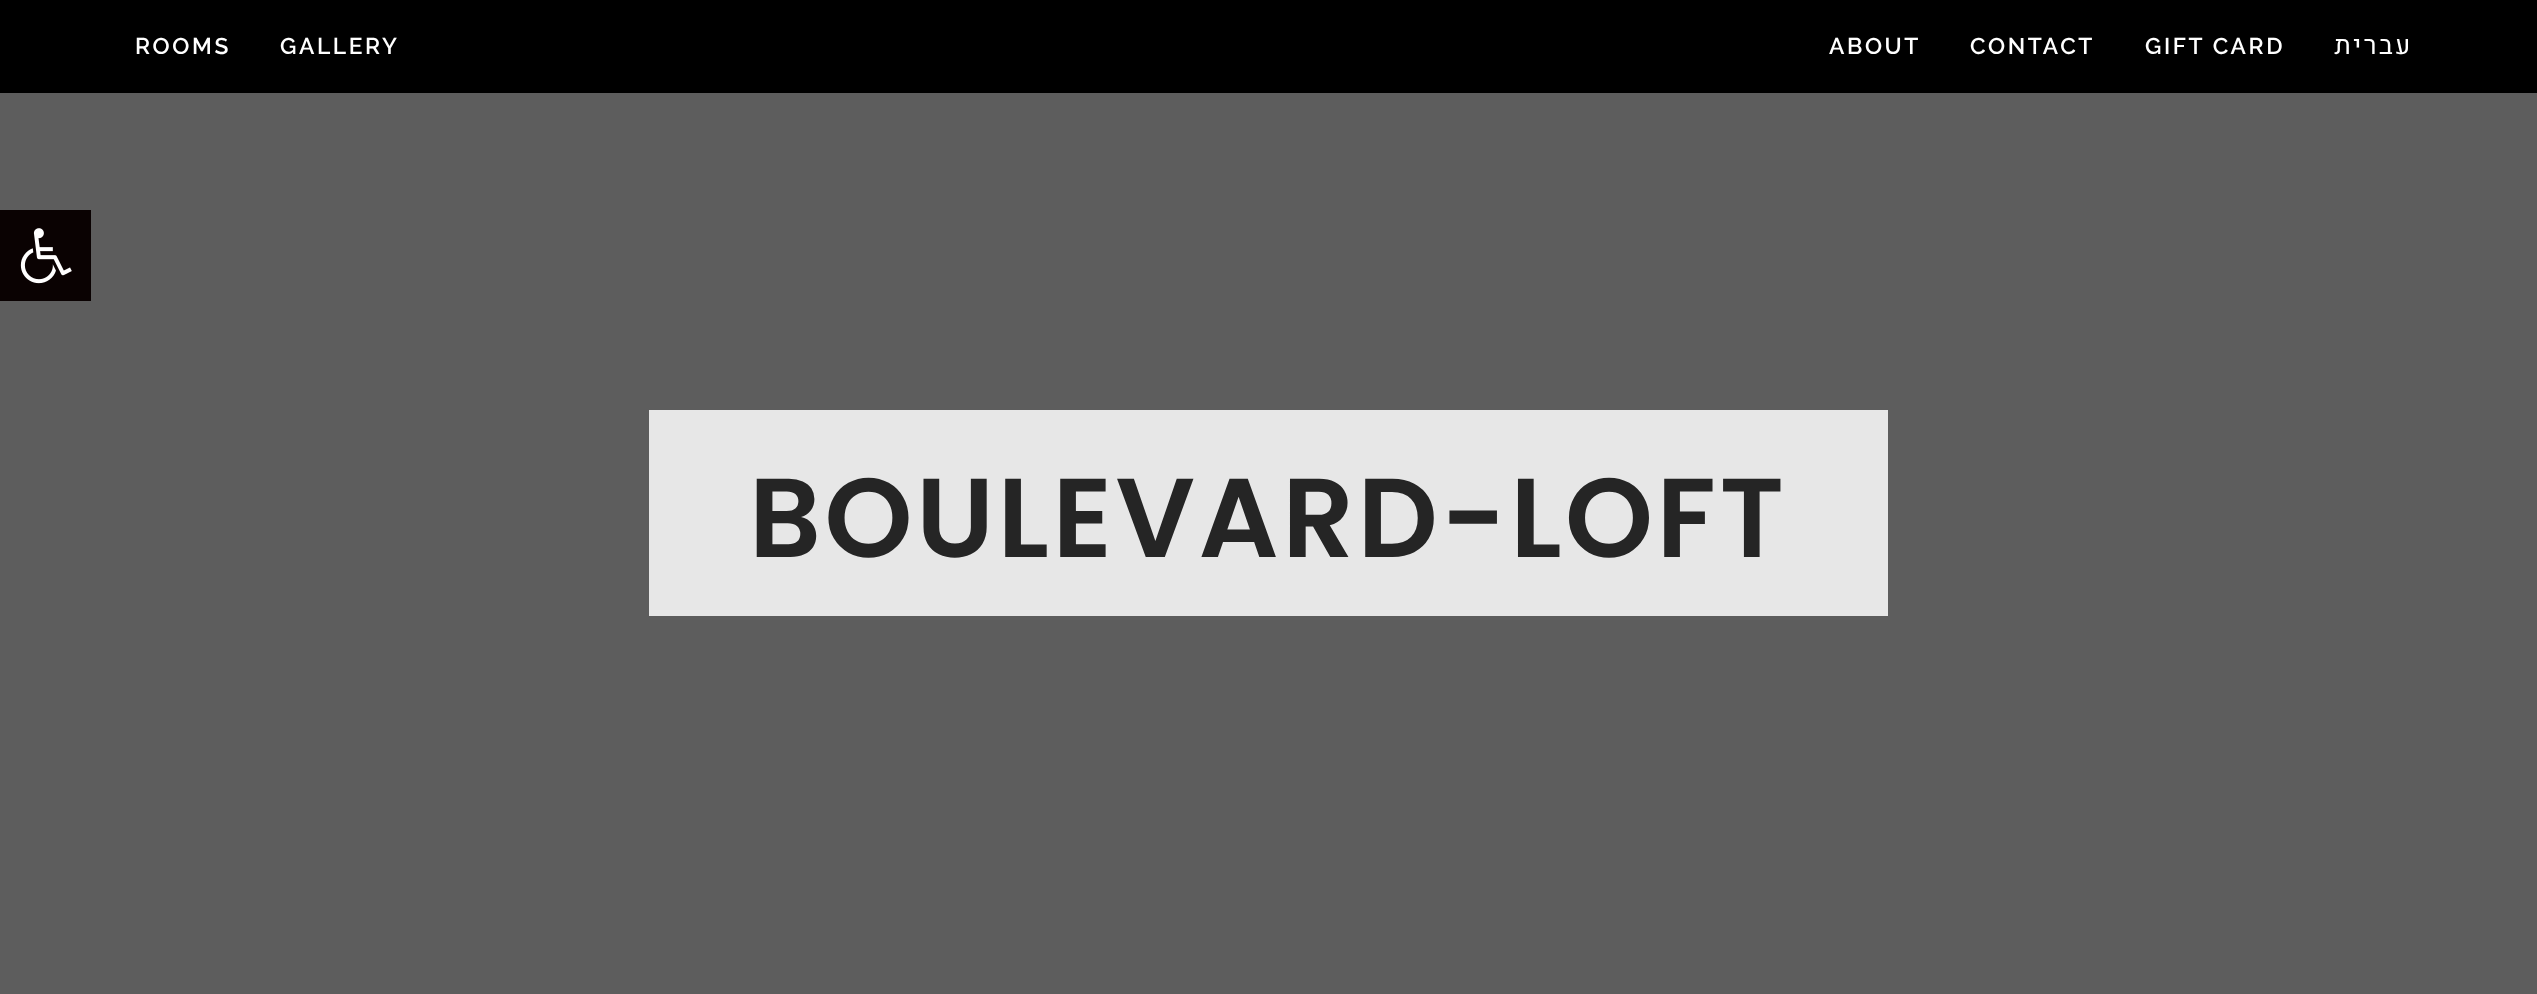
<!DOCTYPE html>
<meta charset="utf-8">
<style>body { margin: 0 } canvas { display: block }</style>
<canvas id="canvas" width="2537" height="994"></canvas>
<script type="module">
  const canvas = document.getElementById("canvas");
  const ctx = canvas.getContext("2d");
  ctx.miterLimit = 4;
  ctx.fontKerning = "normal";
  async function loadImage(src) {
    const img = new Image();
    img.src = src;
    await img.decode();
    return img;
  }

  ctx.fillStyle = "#5d5d5d";
  ctx.fillRect(0, 0, 2537, 994);
  ctx.fillStyle = "#0a0202";
  ctx.fillRect(0, 210, 91, 91);
  ctx.drawImage(await loadImage("img1.png"), 20, 228, 52, 56);
  ctx.fillStyle = "#000000";
  ctx.fillRect(0, 0, 2537, 93);
  ctx.letterSpacing = "2.6px";
  ctx.font = "600 22.75px Raleway";
  ctx.fillStyle = "#ffffff";
  ctx.fillText("ROOMS", 135, 54);
  ctx.fillText("GALLERY", 280, 54);
  ctx.fillText("ABOUT", 1829, 54);
  ctx.fillText("CONTACT", 1970, 54);
  ctx.fillText("GIFT CARD", 2145, 54);
  ctx.direction = "rtl";
  ctx.font = "26px Heebo";
  ctx.fillText("עברית", 2413, 54);
  ctx.fillStyle = "#e7e7e7";
  ctx.fillRect(649, 410, 1239, 206);
  ctx.letterSpacing = "3.5px";
  ctx.direction = "ltr";
  ctx.font = "600 112px Poppins";
  ctx.fillStyle = "#252525";
  ctx.fillText("BOULEVARD-LOFT", 749, 557);
</script>
